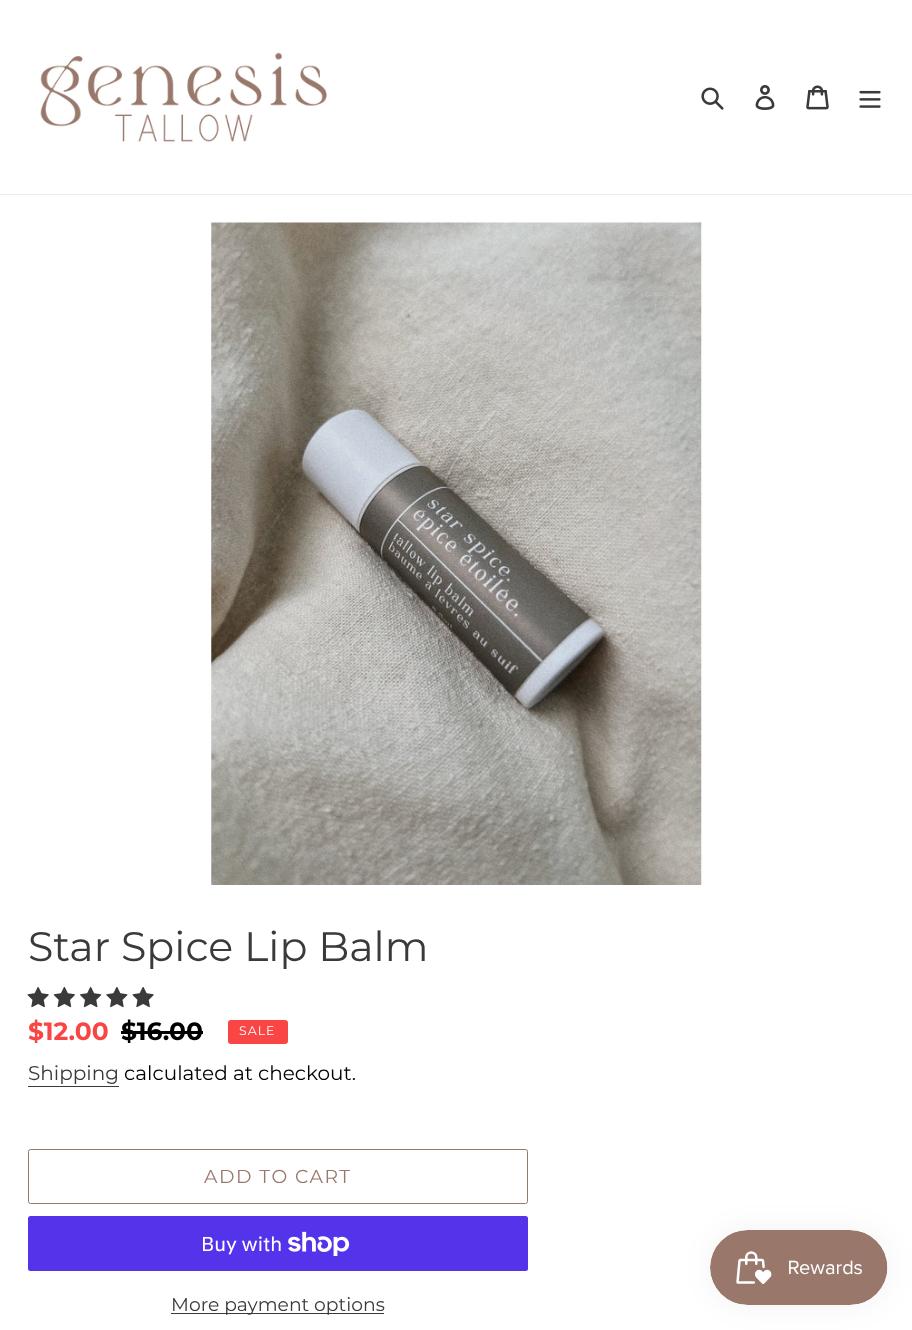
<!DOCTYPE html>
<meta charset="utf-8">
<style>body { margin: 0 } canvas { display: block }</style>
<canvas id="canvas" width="912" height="1330"></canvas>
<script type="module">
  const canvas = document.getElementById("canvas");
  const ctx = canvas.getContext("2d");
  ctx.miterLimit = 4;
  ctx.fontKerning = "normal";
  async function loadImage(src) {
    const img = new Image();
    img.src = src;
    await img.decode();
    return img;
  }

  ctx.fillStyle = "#ffffff";
  ctx.fillRect(0, 0, 912, 1330);
  ctx.fillStyle = "#ebebeb";
  ctx.fillRect(0, 194, 912, 1);
  ctx.drawImage(await loadImage("img1.png"), 40, 52, 287, 90);
  ctx.drawImage(await loadImage("img2.png"), 701, 87, 23, 23);
  ctx.drawImage(await loadImage("img3.png"), 755, 85, 20, 25);
  ctx.drawImage(await loadImage("img4.png"), 806, 85, 23, 25);
  ctx.drawImage(await loadImage("img5.png"), 859, 90, 22, 18);
  ctx.drawImage(await loadImage("img6.png"), 211, 222, 491, 663);
  ctx.font = "41.25px Montserrat";
  ctx.fillStyle = "#3a3a3a";
  ctx.fillText("Star Spice Lip Balm", 28, 961);
  ctx.drawImage(await loadImage("img7.png"), 27, 987, 22, 21);
  ctx.drawImage(await loadImage("img8.png"), 53, 986, 22, 22);
  ctx.drawImage(await loadImage("img9.png"), 80, 986, 22, 22);
  ctx.drawImage(await loadImage("img10.png"), 106, 987, 22, 21);
  ctx.drawImage(await loadImage("img7.png"), 132, 987, 22, 21);
  ctx.font = "bold 25px Montserrat";
  ctx.fillStyle = "#fa4545";
  ctx.fillText("$12.00", 28, 1040);
  ctx.fillStyle = "#000000";
  ctx.fillText("$16.00", 121, 1040);
  ctx.fillRect(121, 1031, 82, 3);
  ctx.fillStyle = "#fa4545";
  ctx.beginPath();
  ctx.roundRect(228.5, 1020.5, 59, 23, 2);
  ctx.fill();
  ctx.strokeStyle = "#fa4545";
  ctx.stroke();
  ctx.letterSpacing = "1px";
  ctx.font = "12.5px Montserrat";
  ctx.fillStyle = "#ffffff";
  ctx.fillText("SALE", 239, 1035);
  ctx.letterSpacing = "0px";
  ctx.font = "20px Montserrat";
  ctx.fillStyle = "#3a3a3a";
  ctx.fillText("Shipping", 28, 1080);
  ctx.fillRect(28, 1086, 91, 1);
  ctx.fillStyle = "#000000";
  ctx.fillText("calculated at checkout.", 124, 1080);
  ctx.beginPath();
  ctx.roundRect(28.5, 1149.5, 499, 54, 2);
  ctx.strokeStyle = "#99786b";
  ctx.stroke();
  ctx.letterSpacing = "1.5px";
  ctx.font = "18.75px Montserrat";
  ctx.fillStyle = "#99786b";
  ctx.fillText("ADD TO CART", 204, 1183);
  ctx.fillStyle = "#5433eb";
  ctx.beginPath();
  ctx.roundRect(28, 1216, 500, 55, 2.5);
  ctx.fill();
  ctx.letterSpacing = "0px";
  ctx.font = "20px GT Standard";
  ctx.fillStyle = "#ffffff";
  ctx.fillText("Buy with", 201, 1251);
  ctx.drawImage(await loadImage("img11.png"), 288, 1231, 62, 25);
  ctx.fillStyle = "#3a3a3a";
  ctx.fillRect(171, 1313, 213, 1);
  ctx.font = "18.75px Montserrat";
  ctx.fillText("More payment options", 171, 1311);
  ctx.fillStyle = "rgba(0, 0, 0, 0.05)";
  ctx.filter = "blur(15.5px)";
  ctx.beginPath();
  ctx.roundRect(710, 1230, 178, 75, 37.5);
  ctx.fill();
  ctx.filter = "none";
  ctx.drawImage(await loadImage("img12.png"), 710, 1230, 178, 75);
</script>
